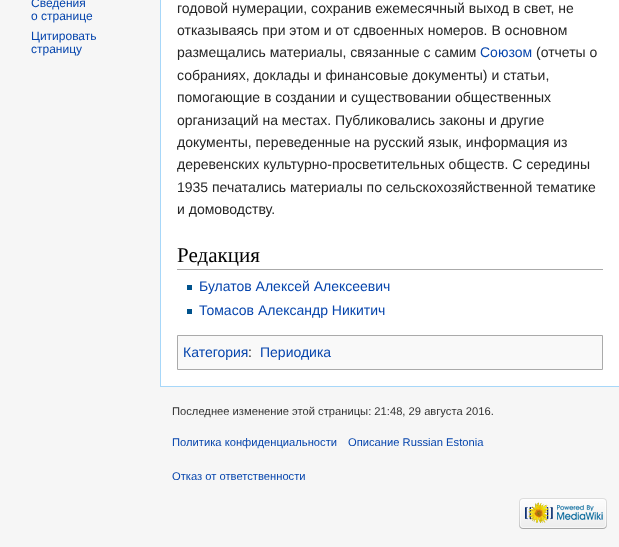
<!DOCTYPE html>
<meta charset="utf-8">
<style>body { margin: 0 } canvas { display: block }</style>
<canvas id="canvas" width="619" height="547"></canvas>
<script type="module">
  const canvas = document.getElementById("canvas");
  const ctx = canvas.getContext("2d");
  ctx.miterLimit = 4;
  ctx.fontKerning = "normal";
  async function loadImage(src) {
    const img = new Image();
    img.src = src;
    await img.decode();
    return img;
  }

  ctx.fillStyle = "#f6f6f6";
  ctx.fillRect(0, 0, 619, 547);
  ctx.font = "12px Liberation Sans";
  ctx.fillStyle = "#0645ad";
  ctx.fillText("Сведения", 31, 7);
  ctx.fillText("о странице", 31, 20);
  ctx.fillText("Цитировать", 31, 40);
  ctx.fillText("страницу", 31, 53);
  ctx.fillStyle = "#ffffff";
  ctx.fillRect(161, 0, 458, 386);
  ctx.fillStyle = "#a7d7f9";
  ctx.fillRect(160, 386, 459, 1);
  ctx.fillRect(160, 0, 1, 387);
  ctx.font = "14px Liberation Sans";
  ctx.fillStyle = "#252525";
  ctx.fillText("годовой нумерации, сохранив ежемесячный выход в свет, не", 177, 13);
  ctx.fillText("отказываясь при этом и от сдвоенных номеров. В основном", 177, 35);
  ctx.fillText("размещались материалы, связанные с самим", 177, 57);
  ctx.fillStyle = "#0645ad";
  ctx.fillText("Союзом", 480, 57);
  ctx.fillStyle = "#252525";
  ctx.fillText("(отчеты о", 536, 57);
  ctx.fillText("собраниях, доклады и финансовые документы) и статьи,", 177, 80);
  ctx.fillText("помогающие в создании и существовании общественных", 177, 102);
  ctx.fillText("организаций на местах. Публиковались законы и другие", 177, 125);
  ctx.fillText("документы, переведенные на русский язык, информация из", 177, 147);
  ctx.fillText("деревенских культурно-просветительных обществ. С середины", 177, 169);
  ctx.fillText("1935 печатались материалы по сельскохозяйственной тематике", 177, 192);
  ctx.fillText("и домоводству.", 177, 214);
  ctx.fillStyle = "#aaaaaa";
  ctx.fillRect(177, 269, 426, 1);
  ctx.font = "21px Liberation Serif";
  ctx.fillStyle = "#000000";
  ctx.fillText("Редакция", 177, 262);
  ctx.fillStyle = "#00528c";
  ctx.fillRect(187, 285, 5, 5);
  ctx.font = "14px Liberation Sans";
  ctx.fillStyle = "#0645ad";
  ctx.fillText("Булатов Алексей Алексеевич", 199, 291);
  ctx.fillStyle = "#00528c";
  ctx.fillRect(187, 309, 5, 5);
  ctx.fillStyle = "#0645ad";
  ctx.fillText("Томасов Александр Никитич", 199, 315);
  ctx.fillStyle = "#f9f9f9";
  ctx.beginPath();
  ctx.rect(177.5, 335.5, 425, 34);
  ctx.fill();
  ctx.strokeStyle = "#aaaaaa";
  ctx.stroke();
  ctx.fillStyle = "#0645ad";
  ctx.fillText("Категория", 183, 357);
  ctx.fillStyle = "#252525";
  ctx.fillText(":", 248, 357);
  ctx.fillStyle = "#0645ad";
  ctx.fillText("Периодика", 260, 357);
  ctx.font = "11.2px Liberation Sans";
  ctx.fillStyle = "#333333";
  ctx.fillText("Последнее изменение этой страницы: 21:48, 29 августа 2016.", 172, 415);
  ctx.fillStyle = "#0645ad";
  ctx.fillText("Политика конфиденциальности", 172, 446);
  ctx.fillText("Описание Russian Estonia", 348, 446);
  ctx.fillText("Отказ от ответственности", 172, 480);
  ctx.drawImage(await loadImage("img1.png"), 519, 498, 88, 31);
</script>
